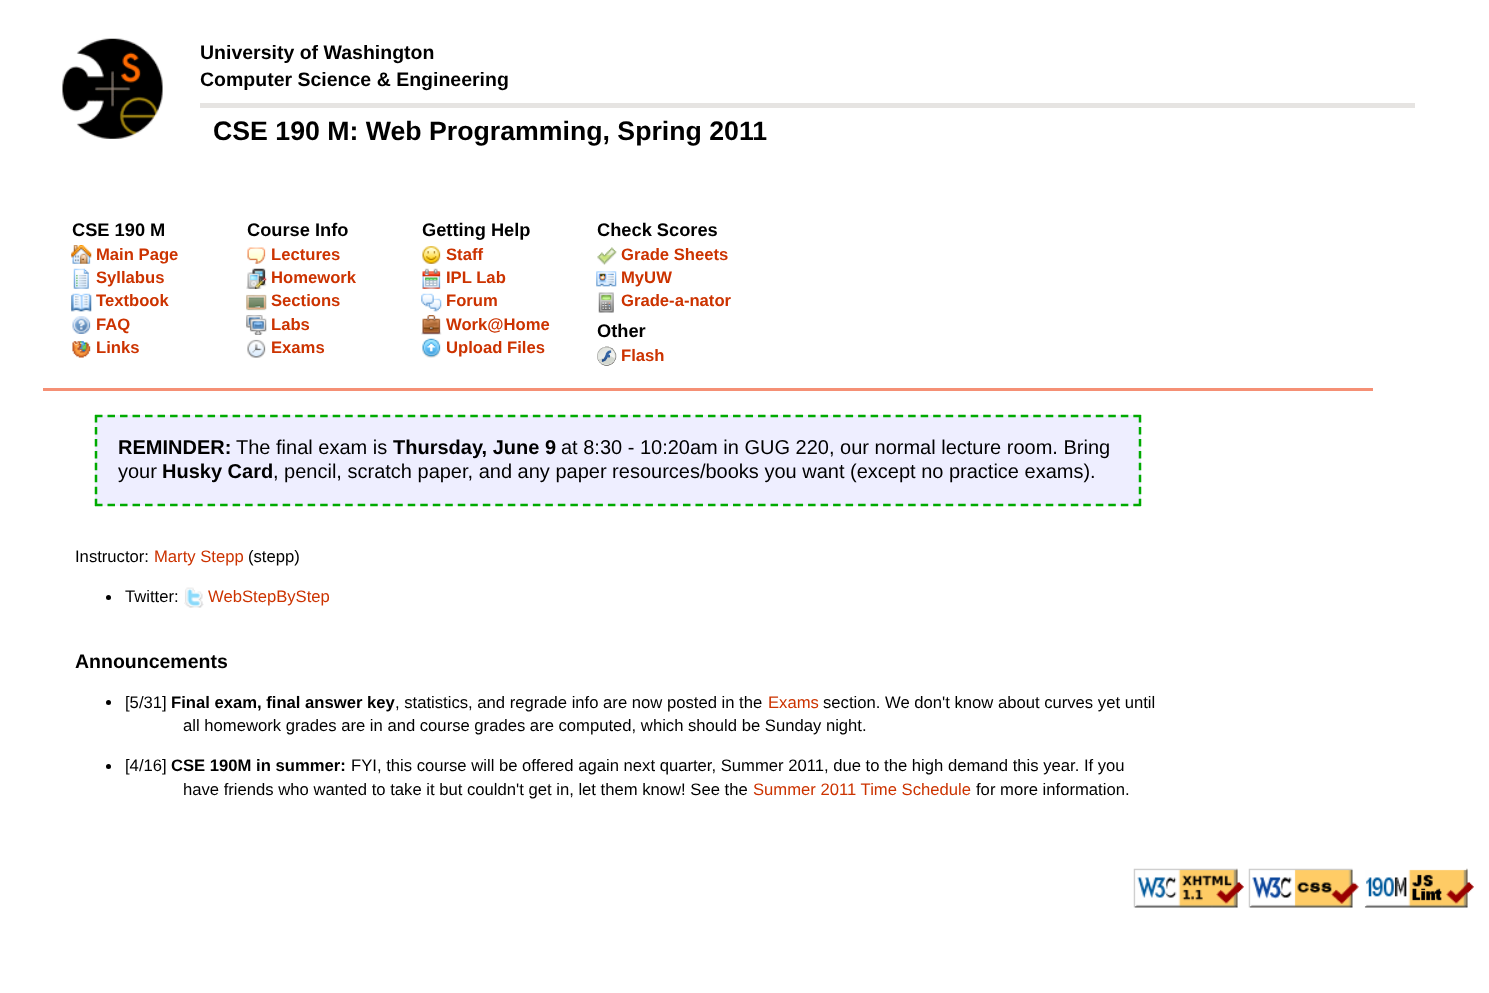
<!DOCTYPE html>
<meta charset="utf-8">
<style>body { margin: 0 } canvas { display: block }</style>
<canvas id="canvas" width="1489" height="993"></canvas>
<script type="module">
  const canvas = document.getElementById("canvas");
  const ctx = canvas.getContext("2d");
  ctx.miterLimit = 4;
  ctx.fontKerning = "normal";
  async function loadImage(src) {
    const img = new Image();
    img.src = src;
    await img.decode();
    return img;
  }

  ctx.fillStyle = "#ffffff";
  ctx.fillRect(0, 0, 1489, 993);
  ctx.drawImage(await loadImage("img1.png"), 62, 38, 101, 101);
  ctx.font = "bold 19.5px Liberation Sans";
  ctx.fillStyle = "#000000";
  ctx.fillText("University of Washington", 200, 59);
  ctx.fillText("Computer Science & Engineering", 200, 86);
  ctx.fillStyle = "#e6e4e2";
  ctx.fillRect(200, 103, 1215, 5);
  ctx.font = "bold 26.7px Liberation Sans";
  ctx.fillStyle = "#000000";
  ctx.fillText("CSE 190 M: Web Programming, Spring 2011", 213, 140);
  ctx.fillStyle = "#f59075";
  ctx.fillRect(43, 388, 1330, 3);
  ctx.font = "bold 18.25px Liberation Sans";
  ctx.fillStyle = "#000000";
  ctx.fillText("CSE 190 M", 72, 236);
  ctx.drawImage(await loadImage("img2.png"), 71, 245, 21, 19);
  ctx.font = "bold 16.65px Liberation Sans";
  ctx.fillStyle = "#cc3300";
  ctx.fillText("Main Page", 96, 260);
  ctx.drawImage(await loadImage("img3.png"), 73, 268, 16, 21);
  ctx.fillText("Syllabus", 96, 283);
  ctx.drawImage(await loadImage("img4.png"), 71, 293, 21, 19);
  ctx.fillText("Textbook", 96, 306);
  ctx.drawImage(await loadImage("img5.png"), 72, 316, 19, 18);
  ctx.fillText("FAQ", 96, 330);
  ctx.drawImage(await loadImage("img6.png"), 72, 341, 19, 17);
  ctx.fillText("Links", 96, 353);
  ctx.font = "bold 18.25px Liberation Sans";
  ctx.fillStyle = "#000000";
  ctx.fillText("Course Info", 247, 236);
  ctx.drawImage(await loadImage("img7.png"), 247, 247, 19, 17);
  ctx.font = "bold 16.65px Liberation Sans";
  ctx.fillStyle = "#cc3300";
  ctx.fillText("Lectures", 271, 260);
  ctx.drawImage(await loadImage("img8.png"), 246, 268, 21, 21);
  ctx.fillText("Homework", 271, 283);
  ctx.drawImage(await loadImage("img9.png"), 246, 294, 21, 17);
  ctx.fillText("Sections", 271, 306);
  ctx.drawImage(await loadImage("img10.png"), 246, 315, 21, 20);
  ctx.fillText("Labs", 271, 330);
  ctx.drawImage(await loadImage("img11.png"), 247, 339, 19, 19);
  ctx.fillText("Exams", 271, 353);
  ctx.font = "bold 18.25px Liberation Sans";
  ctx.fillStyle = "#000000";
  ctx.fillText("Getting Help", 422, 236);
  ctx.drawImage(await loadImage("img12.png"), 422, 246, 19, 18);
  ctx.font = "bold 16.65px Liberation Sans";
  ctx.fillStyle = "#cc3300";
  ctx.fillText("Staff", 446, 260);
  ctx.drawImage(await loadImage("img13.png"), 422, 268, 19, 21);
  ctx.fillText("IPL Lab", 446, 283);
  ctx.drawImage(await loadImage("img14.png"), 421, 293, 21, 19);
  ctx.fillText("Forum", 446, 306);
  ctx.drawImage(await loadImage("img15.png"), 421, 315, 21, 20);
  ctx.fillText("Work@Home", 446, 330);
  ctx.drawImage(await loadImage("img16.png"), 422, 338, 19, 20);
  ctx.fillText("Upload Files", 446, 353);
  ctx.font = "bold 18.25px Liberation Sans";
  ctx.fillStyle = "#000000";
  ctx.fillText("Check Scores", 597, 236);
  ctx.drawImage(await loadImage("img17.png"), 597, 247, 20, 18);
  ctx.font = "bold 16.65px Liberation Sans";
  ctx.fillStyle = "#cc3300";
  ctx.fillText("Grade Sheets", 621, 260);
  ctx.drawImage(await loadImage("img18.png"), 596, 271, 21, 16);
  ctx.fillText("MyUW", 621, 283);
  ctx.drawImage(await loadImage("img19.png"), 598, 292, 16, 21);
  ctx.fillText("Grade-a-nator", 621, 306);
  ctx.font = "bold 18.25px Liberation Sans";
  ctx.fillStyle = "#000000";
  ctx.fillText("Other", 597, 337);
  ctx.drawImage(await loadImage("img20.png"), 597, 346, 20, 20);
  ctx.font = "bold 16.65px Liberation Sans";
  ctx.fillStyle = "#cc3300";
  ctx.fillText("Flash", 621, 361);
  ctx.fillStyle = "#eeeeff";
  ctx.fillRect(95, 415, 1046, 91);
  ctx.beginPath();
  ctx.moveTo(95, 416);
  ctx.lineTo(1141, 416);
  ctx.strokeStyle = "#00aa00";
  ctx.lineWidth = 2.5;
  ctx.setLineDash([7.5, 5.01]);
  ctx.stroke();
  ctx.beginPath();
  ctx.moveTo(1140, 415);
  ctx.lineTo(1140, 506);
  ctx.setLineDash([7.5, 4.46]);
  ctx.stroke();
  ctx.beginPath();
  ctx.moveTo(95, 505);
  ctx.lineTo(1141, 505);
  ctx.setLineDash([7.5, 5.01]);
  ctx.stroke();
  ctx.beginPath();
  ctx.moveTo(96, 415);
  ctx.lineTo(96, 506);
  ctx.setLineDash([7.5, 4.46]);
  ctx.stroke();
  ctx.font = "bold 20px Liberation Sans";
  ctx.fillStyle = "#000000";
  ctx.fillText("REMINDER:", 118, 454);
  ctx.font = "20px Liberation Sans";
  ctx.fillText("The final exam is", 236, 454);
  ctx.font = "bold 20px Liberation Sans";
  ctx.fillText("Thursday, June 9", 393, 454);
  ctx.font = "20px Liberation Sans";
  ctx.fillText("at 8:30 - 10:20am in GUG 220, our normal lecture room. Bring", 561, 454);
  ctx.fillText("your", 118, 478);
  ctx.font = "bold 20px Liberation Sans";
  ctx.fillText("Husky Card", 162, 478);
  ctx.font = "20px Liberation Sans";
  ctx.fillText(", pencil, scratch paper, and any paper resources/books you want (except no practice exams).", 273, 478);
  ctx.font = "16.65px Liberation Sans";
  ctx.fillText("Instructor:", 75, 562);
  ctx.fillStyle = "#cc3300";
  ctx.fillText("Marty Stepp", 154, 562);
  ctx.fillStyle = "#000000";
  ctx.fillText("(stepp)", 248, 562);
  ctx.beginPath();
  ctx.arc(108.5, 597.5, 2.5, 0, Math.PI * 2);
  ctx.fill();
  ctx.fillText("Twitter:", 125, 602);
  ctx.drawImage(await loadImage("img21.png"), 184, 587, 20, 21);
  ctx.fillStyle = "#cc3300";
  ctx.fillText("WebStepByStep", 208, 602);
  ctx.font = "bold 19.5px Liberation Sans";
  ctx.fillStyle = "#000000";
  ctx.fillText("Announcements", 75, 668);
  ctx.beginPath();
  ctx.arc(108.5, 702.5, 2.5, 0, Math.PI * 2);
  ctx.fill();
  ctx.font = "16.65px Liberation Sans";
  ctx.fillText("[5/31]", 125, 708);
  ctx.font = "bold 16.65px Liberation Sans";
  ctx.fillText("Final exam, final answer key", 171, 708);
  ctx.font = "16.65px Liberation Sans";
  ctx.fillText(", statistics, and regrade info are now posted in the", 395, 708);
  ctx.fillStyle = "#cc3300";
  ctx.fillText("Exams", 768, 708);
  ctx.fillStyle = "#000000";
  ctx.fillText("section. We don't know about curves yet until", 823, 708);
  ctx.fillText("all homework grades are in and course grades are computed, which should be Sunday night.", 183, 731);
  ctx.beginPath();
  ctx.arc(108.5, 766.5, 2.5, 0, Math.PI * 2);
  ctx.fill();
  ctx.fillText("[4/16]", 125, 771);
  ctx.font = "bold 16.65px Liberation Sans";
  ctx.fillText("CSE 190M in summer:", 171, 771);
  ctx.font = "16.65px Liberation Sans";
  ctx.fillText("FYI, this course will be offered again next quarter, Summer 2011, due to the high demand this year. If you", 351, 771);
  ctx.fillText("have friends who wanted to take it but couldn't get in, let them know! See the", 183, 795);
  ctx.fillStyle = "#cc3300";
  ctx.fillText("Summer 2011 Time Schedule", 753, 795);
  ctx.fillStyle = "#000000";
  ctx.fillText("for more information.", 976, 795);
  ctx.drawImage(await loadImage("img22.png"), 1133, 868, 111, 40);
  ctx.drawImage(await loadImage("img23.png"), 1248, 868, 111, 40);
  ctx.drawImage(await loadImage("img24.png"), 1364, 868, 110, 40);
</script>
